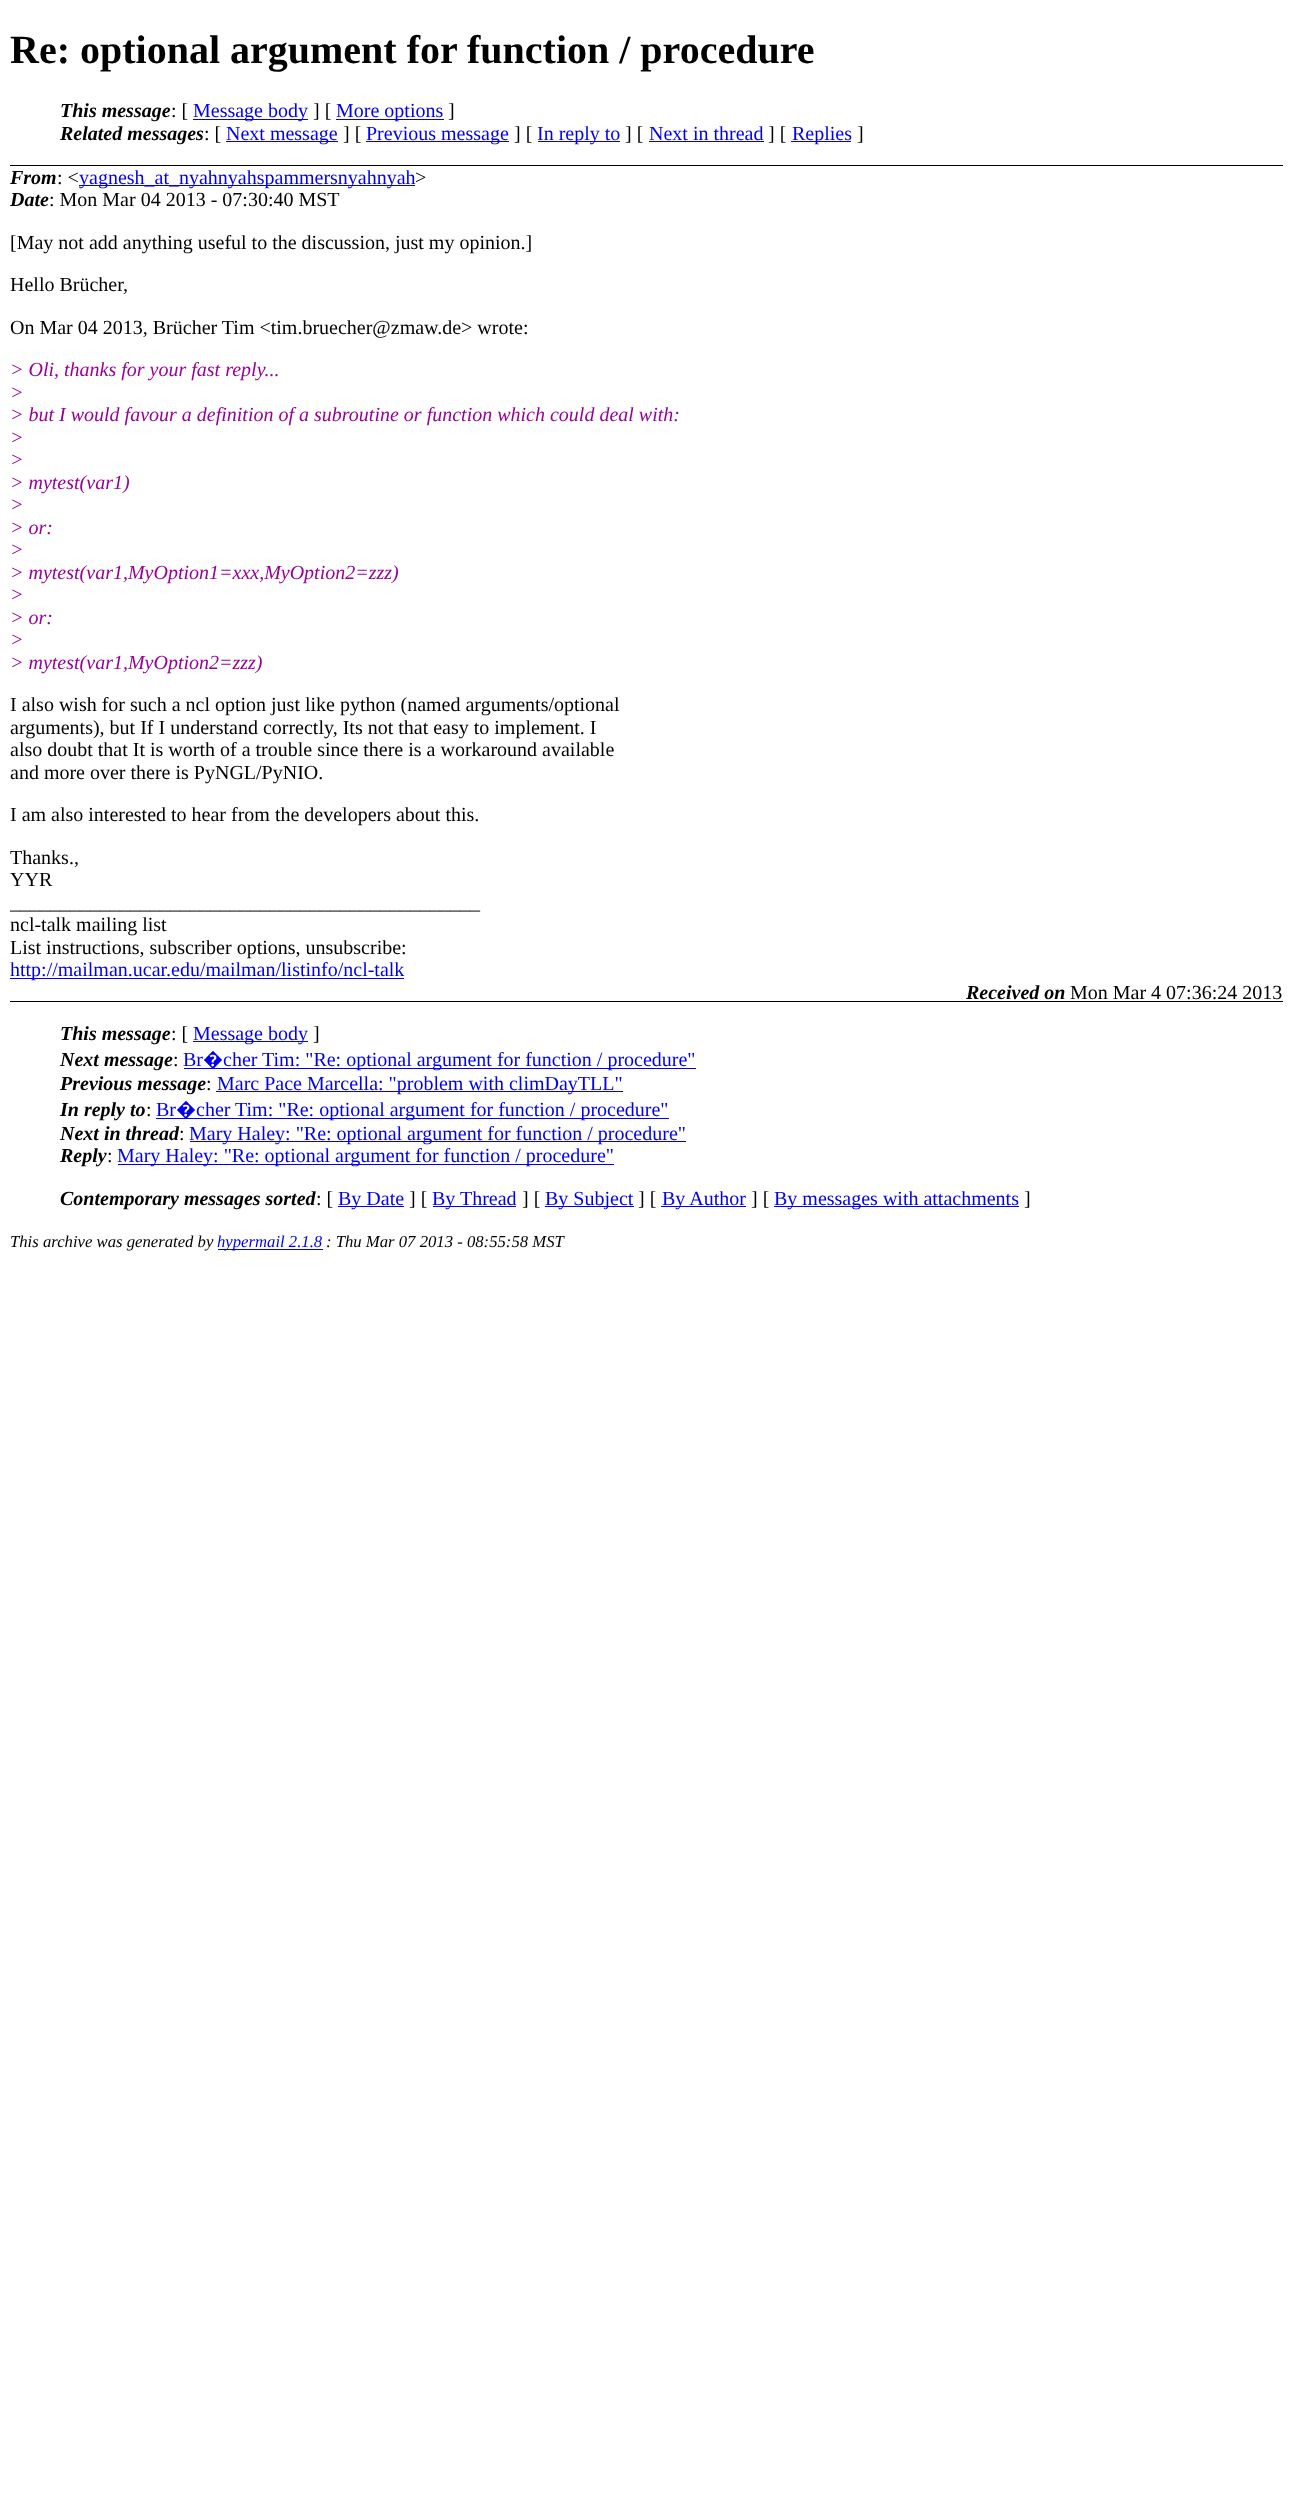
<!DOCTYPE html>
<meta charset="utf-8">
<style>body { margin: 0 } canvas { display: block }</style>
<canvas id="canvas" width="1292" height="2495"></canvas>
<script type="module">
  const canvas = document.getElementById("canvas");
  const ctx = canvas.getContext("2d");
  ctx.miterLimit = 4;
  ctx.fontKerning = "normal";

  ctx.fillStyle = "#ffffff";
  ctx.fillRect(0, 0, 1292, 2495);
  ctx.fillStyle = "#000000";
  ctx.fillRect(10, 165, 1273, 1);
  ctx.font = "bold 40px Liberation Serif";
  ctx.fillText("Re: optional argument for function / procedure", 10, 63);
  ctx.font = "italic bold 20px Liberation Serif";
  ctx.fillText("This message", 60, 117);
  ctx.font = "20px Liberation Serif";
  ctx.fillText(": [", 171, 117);
  ctx.fillStyle = "#0000ee";
  ctx.fillRect(193, 119, 115, 1);
  ctx.fillText("Message body", 193, 117);
  ctx.fillStyle = "#000000";
  ctx.fillText("] [", 313, 117);
  ctx.fillStyle = "#0000ee";
  ctx.fillRect(336, 119, 108, 1);
  ctx.fillText("More options", 336, 117);
  ctx.fillStyle = "#000000";
  ctx.fillText("]", 448, 117);
  ctx.font = "italic bold 20px Liberation Serif";
  ctx.fillText("Related messages", 60, 140);
  ctx.font = "20px Liberation Serif";
  ctx.fillText(": [", 204, 140);
  ctx.fillStyle = "#0000ee";
  ctx.fillRect(226, 141, 112, 1);
  ctx.fillText("Next message", 226, 140);
  ctx.fillStyle = "#000000";
  ctx.fillText("] [", 343, 140);
  ctx.fillStyle = "#0000ee";
  ctx.fillRect(366, 141, 143, 1);
  ctx.fillText("Previous message", 366, 140);
  ctx.fillStyle = "#000000";
  ctx.fillText("] [", 514, 140);
  ctx.fillStyle = "#0000ee";
  ctx.fillRect(538, 141, 82, 1);
  ctx.fillText("In reply to", 537, 140);
  ctx.fillStyle = "#000000";
  ctx.fillText("] [", 625, 140);
  ctx.fillStyle = "#0000ee";
  ctx.fillText("Next in thread", 649, 140);
  ctx.fillRect(649, 141, 115, 1);
  ctx.fillStyle = "#000000";
  ctx.fillText("] [", 768, 140);
  ctx.fillStyle = "#0000ee";
  ctx.fillRect(791, 141, 60, 1);
  ctx.fillText("Replies", 792, 140);
  ctx.fillStyle = "#000000";
  ctx.fillText("]", 857, 140);
  ctx.font = "italic bold 20px Liberation Serif";
  ctx.fillText("From", 10, 184);
  ctx.font = "20px Liberation Serif";
  ctx.fillText(": <", 57, 184);
  ctx.fillStyle = "#0000ee";
  ctx.fillRect(79, 185, 336, 1);
  ctx.fillText("yagnesh_at_nyahnyahspammersnyahnyah", 79, 184);
  ctx.fillStyle = "#000000";
  ctx.fillText(">", 415, 184);
  ctx.font = "italic bold 20px Liberation Serif";
  ctx.fillText("Date", 10, 206);
  ctx.font = "20px Liberation Serif";
  ctx.fillText(": Mon Mar 04 2013 - 07:30:40 MST", 49, 206);
  ctx.fillText("[May not add anything useful to the discussion, just my opinion.]", 10, 249);
  ctx.fillText("Hello Brücher,", 10, 291);
  ctx.fillText("On Mar 04 2013, Brücher Tim <tim.bruecher@zmaw.de> wrote:", 10, 334);
  ctx.font = "italic 20px Liberation Serif";
  ctx.fillStyle = "#990099";
  ctx.fillText("> Oli, thanks for your fast reply...", 10, 376);
  ctx.fillText(">", 10, 399);
  ctx.fillText("> but I would favour a definition of a subroutine or function which could deal with:", 10, 421);
  ctx.fillText(">", 10, 444);
  ctx.fillText(">", 10, 466);
  ctx.fillText("> mytest(var1)", 10, 489);
  ctx.fillText(">", 10, 511);
  ctx.fillText("> or:", 10, 534);
  ctx.fillText(">", 10, 556);
  ctx.fillText("> mytest(var1,MyOption1=xxx,MyOption2=zzz)", 10, 579);
  ctx.fillText(">", 10, 601);
  ctx.fillText("> or:", 10, 624);
  ctx.fillText(">", 10, 646);
  ctx.fillText("> mytest(var1,MyOption2=zzz)", 10, 669);
  ctx.font = "20px Liberation Serif";
  ctx.fillStyle = "#000000";
  ctx.fillText("I also wish for such a ncl option just like python (named arguments/optional", 10, 711);
  ctx.fillText("arguments), but If I understand correctly, Its not that easy to implement. I", 10, 734);
  ctx.fillText("also doubt that It is worth of a trouble since there is a workaround available", 10, 756);
  ctx.fillText("and more over there is PyNGL/PyNIO.", 10, 779);
  ctx.fillText("I am also interested to hear from the developers about this.", 10, 821);
  ctx.fillText("Thanks.,", 10, 864);
  ctx.fillText("YYR", 10, 886);
  ctx.fillText("_______________________________________________", 10, 909);
  ctx.fillText("ncl-talk mailing list", 10, 931);
  ctx.fillText("List instructions, subscriber options, unsubscribe:", 10, 954);
  ctx.fillStyle = "#0000ee";
  ctx.fillRect(10, 978, 394, 1);
  ctx.fillText("http://mailman.ucar.edu/mailman/listinfo/ncl-talk", 10, 976);
  ctx.font = "italic bold 20px Liberation Serif";
  ctx.fillStyle = "#000000";
  ctx.fillText("Received on", 966, 999);
  ctx.font = "20px Liberation Serif";
  ctx.fillText("Mon Mar 4 07:36:24 2013", 1070, 999);
  ctx.fillRect(10, 1001, 1273, 1);
  ctx.font = "italic bold 20px Liberation Serif";
  ctx.fillText("This message", 60, 1040);
  ctx.font = "20px Liberation Serif";
  ctx.fillText(": [", 171, 1040);
  ctx.fillStyle = "#0000ee";
  ctx.fillRect(193, 1041, 115, 1);
  ctx.fillText("Message body", 193, 1040);
  ctx.fillStyle = "#000000";
  ctx.fillText("]", 313, 1040);
  ctx.font = "italic bold 20px Liberation Serif";
  ctx.fillText("Next message", 60, 1066);
  ctx.font = "20px Liberation Serif";
  ctx.fillText(":", 173, 1066);
  ctx.fillStyle = "#0000ee";
  ctx.fillText("Br", 183, 1066);
  ctx.fillRect(184, 1068, 512, 1);
  ctx.font = "20px Noto Sans";
  ctx.fillText("�", 203, 1066);
  ctx.font = "20px Liberation Serif";
  ctx.fillText("cher Tim: \"Re: optional argument for function / procedure\"", 223, 1066);
  ctx.font = "italic bold 20px Liberation Serif";
  ctx.fillStyle = "#000000";
  ctx.fillText("Previous message", 60, 1090);
  ctx.font = "20px Liberation Serif";
  ctx.fillText(":", 206, 1090);
  ctx.fillStyle = "#0000ee";
  ctx.fillRect(216, 1091, 407, 1);
  ctx.fillText("Marc Pace Marcella: \"problem with climDayTLL\"", 217, 1090);
  ctx.font = "italic bold 20px Liberation Serif";
  ctx.fillStyle = "#000000";
  ctx.fillText("In reply to", 60, 1116);
  ctx.font = "20px Liberation Serif";
  ctx.fillText(":", 146, 1116);
  ctx.fillStyle = "#0000ee";
  ctx.fillText("Br", 156, 1116);
  ctx.fillRect(156, 1118, 513, 1);
  ctx.font = "20px Noto Sans";
  ctx.fillText("�", 176, 1116);
  ctx.font = "20px Liberation Serif";
  ctx.fillText("cher Tim: \"Re: optional argument for function / procedure\"", 196, 1116);
  ctx.font = "italic bold 20px Liberation Serif";
  ctx.fillStyle = "#000000";
  ctx.fillText("Next in thread", 60, 1140);
  ctx.font = "20px Liberation Serif";
  ctx.fillText(":", 179, 1140);
  ctx.fillStyle = "#0000ee";
  ctx.fillRect(190, 1141, 496, 1);
  ctx.fillText("Mary Haley: \"Re: optional argument for function / procedure\"", 189, 1140);
  ctx.font = "italic bold 20px Liberation Serif";
  ctx.fillStyle = "#000000";
  ctx.fillText("Reply", 60, 1162);
  ctx.font = "20px Liberation Serif";
  ctx.fillText(":", 107, 1162);
  ctx.fillStyle = "#0000ee";
  ctx.fillRect(118, 1164, 496, 1);
  ctx.fillText("Mary Haley: \"Re: optional argument for function / procedure\"", 117, 1162);
  ctx.font = "italic bold 20px Liberation Serif";
  ctx.fillStyle = "#000000";
  ctx.fillText("Contemporary messages sorted", 60, 1205);
  ctx.font = "20px Liberation Serif";
  ctx.fillText(": [", 316, 1205);
  ctx.fillStyle = "#0000ee";
  ctx.fillRect(338, 1206, 66, 1);
  ctx.fillText("By Date", 338, 1205);
  ctx.fillStyle = "#000000";
  ctx.fillText("] [", 409, 1205);
  ctx.fillStyle = "#0000ee";
  ctx.fillRect(433, 1206, 83, 1);
  ctx.fillText("By Thread", 432, 1205);
  ctx.fillStyle = "#000000";
  ctx.fillText("] [", 522, 1205);
  ctx.fillStyle = "#0000ee";
  ctx.fillRect(545, 1206, 89, 1);
  ctx.fillText("By Subject", 545, 1205);
  ctx.fillStyle = "#000000";
  ctx.fillText("] [", 638, 1205);
  ctx.fillStyle = "#0000ee";
  ctx.fillRect(661, 1206, 85, 1);
  ctx.fillText("By Author", 662, 1205);
  ctx.fillStyle = "#000000";
  ctx.fillText("] [", 751, 1205);
  ctx.fillStyle = "#0000ee";
  ctx.fillRect(774, 1206, 245, 1);
  ctx.fillText("By messages with attachments", 774, 1205);
  ctx.fillStyle = "#000000";
  ctx.fillText("]", 1024, 1205);
  ctx.font = "italic 16.7px Liberation Serif";
  ctx.fillText("This archive was generated by", 10, 1247);
  ctx.fillStyle = "#0000ee";
  ctx.fillRect(218, 1249, 105, 1);
  ctx.fillText("hypermail 2.1.8", 217, 1247);
  ctx.fillStyle = "#000000";
  ctx.fillText(": Thu Mar 07 2013 - 08:55:58 MST", 326, 1247);
</script>
